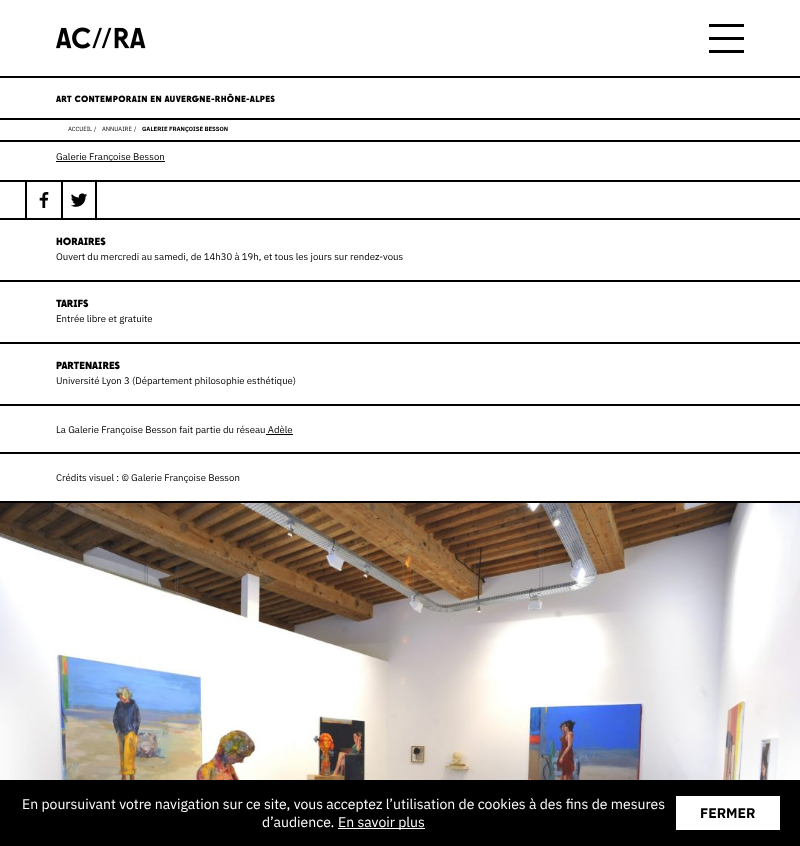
<!DOCTYPE html>
<meta charset="utf-8">
<style>body { margin: 0 } canvas { display: block }</style>
<canvas id="canvas" width="800" height="846"></canvas>
<script type="module">
  const canvas = document.getElementById("canvas");
  const ctx = canvas.getContext("2d");
  ctx.miterLimit = 4;
  ctx.fontKerning = "normal";
  async function loadImage(src) {
    const img = new Image();
    img.src = src;
    await img.decode();
    return img;
  }

  ctx.fillStyle = "#ffffff";
  ctx.fillRect(0, 0, 800, 846);
  ctx.fillStyle = "#000000";
  ctx.fillRect(0, 76, 800, 2);
  ctx.drawImage(await loadImage("img1.png"), 56, 27, 90, 22);
  ctx.fillRect(709, 24, 35, 3);
  ctx.fillRect(709, 37, 35, 3);
  ctx.fillRect(709, 50, 35, 3);
  ctx.fillRect(0, 140, 800, 2);
  ctx.fillRect(0, 118, 800, 2);
  ctx.letterSpacing = "0.3px";
  ctx.font = "bold 9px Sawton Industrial";
  ctx.fillText("ART CONTEMPORAIN EN AUVERGNE-RHÔNE-ALPES", 56, 102);
  ctx.letterSpacing = "0px";
  ctx.font = "6px IBM Plex Sans";
  ctx.fillText("ACCUEIL", 68, 131);
  ctx.fillText("/", 94, 131);
  ctx.fillText("ANNUAIRE", 102, 131);
  ctx.fillText("/", 134, 131);
  ctx.font = "bold 6px IBM Plex Sans";
  ctx.fillText("GALERIE FRANÇOISE BESSON", 142, 131);
  ctx.fillRect(0, 180, 800, 2);
  ctx.fillRect(56, 161, 109, 1);
  ctx.font = "9.6px IBM Plex Sans";
  ctx.fillText("Galerie Françoise Besson", 56, 160);
  ctx.fillRect(0, 218, 800, 2);
  ctx.fillRect(25, 182, 2, 36);
  ctx.drawImage(await loadImage("img2.png"), 39, 192, 10, 16);
  ctx.fillRect(95, 182, 2, 36);
  ctx.fillRect(61, 182, 2, 36);
  ctx.drawImage(await loadImage("img3.png"), 71, 193, 17, 14);
  ctx.fillRect(0, 280, 800, 2);
  ctx.font = "bold 10.5px Sawton Industrial";
  ctx.fillText("HORAIRES", 56, 245);
  ctx.font = "9.6px IBM Plex Sans";
  ctx.fillText("Ouvert du mercredi au samedi, de 14h30 à 19h, et tous les jours sur rendez-vous", 56, 260);
  ctx.fillRect(0, 342, 800, 2);
  ctx.font = "bold 10.5px Sawton Industrial";
  ctx.fillText("TARIFS", 56, 307);
  ctx.font = "9.6px IBM Plex Sans";
  ctx.fillText("Entrée libre et gratuite", 56, 322);
  ctx.fillRect(0, 404, 800, 2);
  ctx.font = "bold 10.5px Sawton Industrial";
  ctx.fillText("PARTENAIRES", 56, 369);
  ctx.font = "9.6px IBM Plex Sans";
  ctx.fillText("Université Lyon 3 (Département philosophie esthétique)", 56, 384);
  ctx.fillRect(0, 452, 800, 2);
  ctx.fillText("La Galerie Françoise Besson fait partie du réseau Adèle", 56, 433);
  ctx.fillRect(266, 434, 27, 1);
  ctx.fillRect(0, 501, 800, 2);
  ctx.fillText("Crédits visuel : © Galerie Françoise Besson", 56, 481);
  ctx.drawImage(await loadImage("img4.png"), 0, 503, 800, 277);
  ctx.fillRect(0, 780, 800, 66);
  ctx.font = "14px IBM Plex Sans";
  ctx.fillStyle = "#ffffff";
  ctx.fillText("En poursuivant votre navigation sur ce site, vous acceptez l’utilisation de cookies à des fins de mesures", 22, 809);
  ctx.fillText("d’audience.", 262, 827);
  ctx.fillRect(338, 828, 87, 1);
  ctx.fillText("En savoir plus", 338, 827);
  ctx.fillRect(676, 796, 104, 34);
  ctx.font = "bold 14px IBM Plex Sans";
  ctx.fillStyle = "#000000";
  ctx.fillText("FERMER", 700, 818);
</script>
